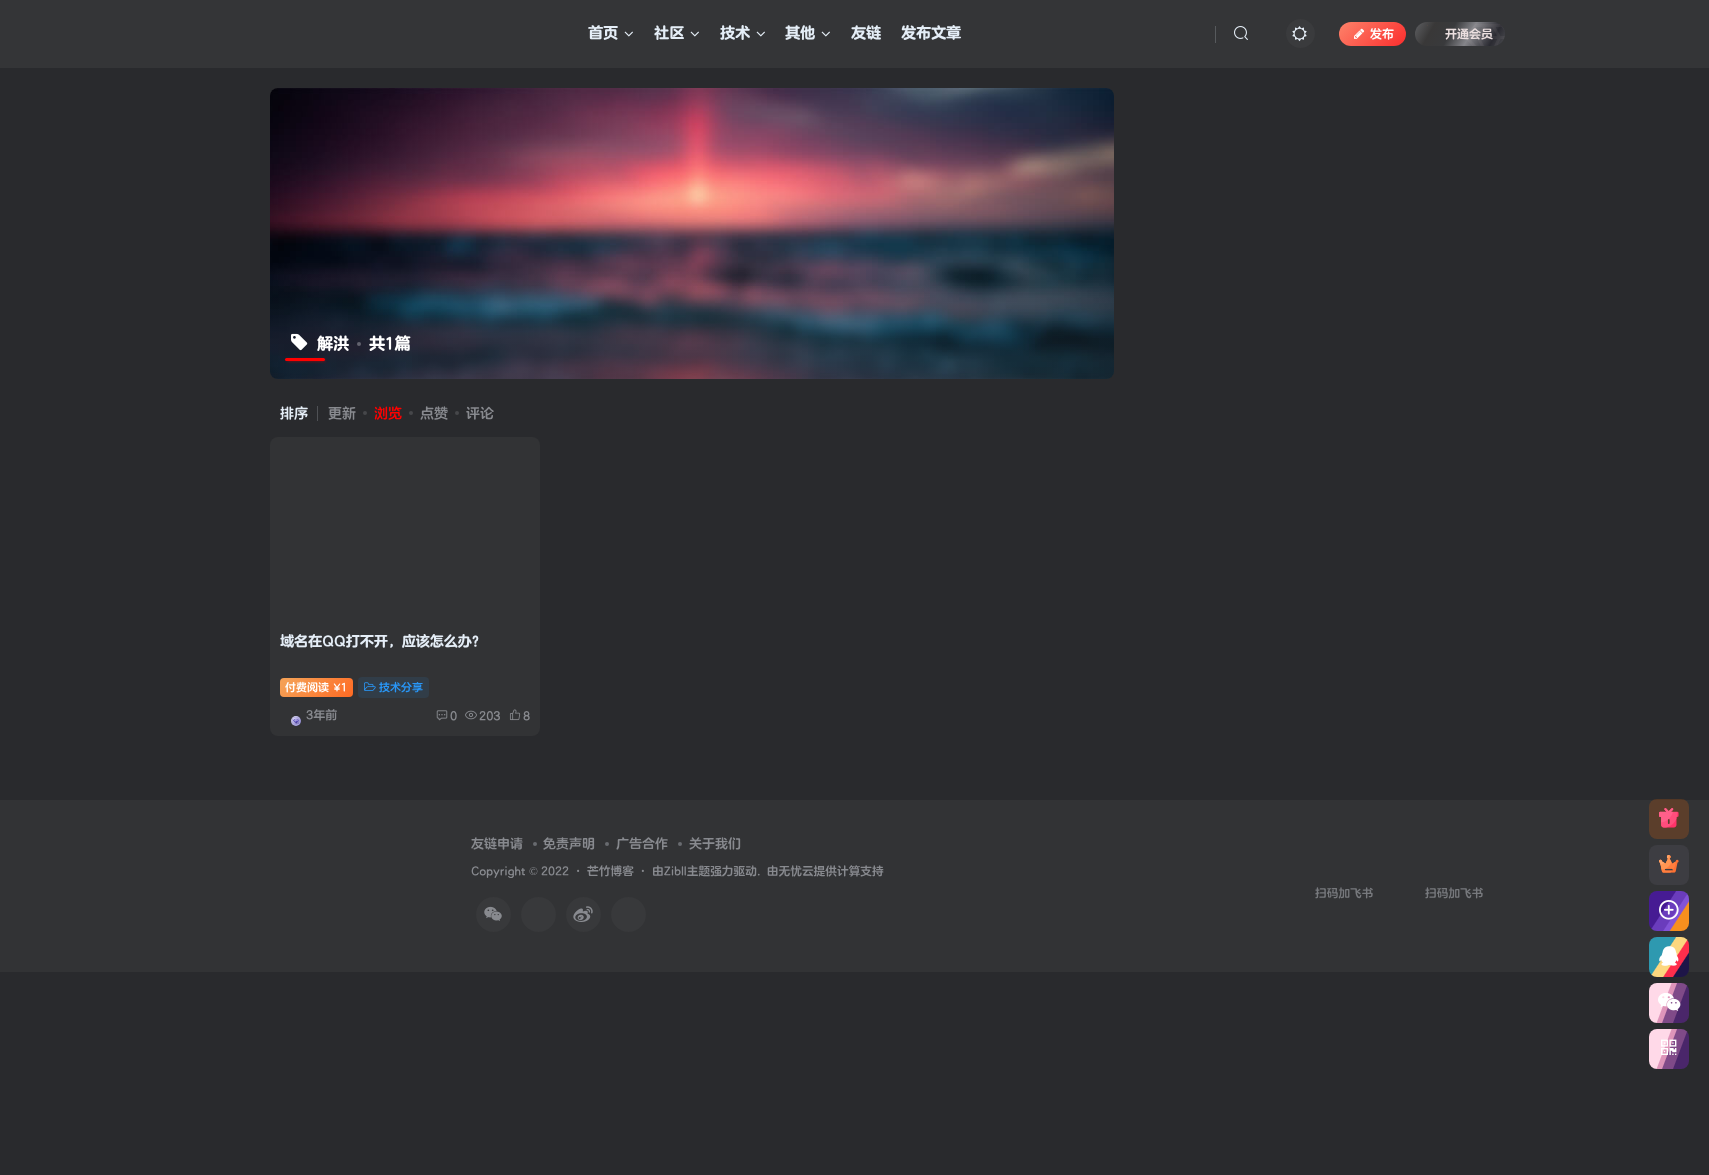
<!DOCTYPE html>
<meta charset="utf-8">
<style>body { margin: 0 } canvas { display: block }</style>
<canvas id="canvas" width="1709" height="1175"></canvas>
<script type="module">
  const canvas = document.getElementById("canvas");
  const ctx = canvas.getContext("2d");
  ctx.miterLimit = 4;
  ctx.fontKerning = "normal";
  async function loadImage(src) {
    const img = new Image();
    img.src = src;
    await img.decode();
    return img;
  }
  let gradient;

  ctx.fillStyle = "#292a2d";
  ctx.fillRect(0, 0, 1709, 1175);
  ctx.fillStyle = "#343537";
  ctx.fillRect(0, 0, 1709, 68);
  ctx.font = "bold 15px 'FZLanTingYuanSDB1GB'";
  ctx.fillStyle = "#e5eef7";
  ctx.fillText("首页", 588, 38);
  ctx.drawImage(await loadImage("img1.png"), 624, 31, 9, 6);
  ctx.fillText("社区", 654, 38);
  ctx.drawImage(await loadImage("img1.png"), 690, 31, 9, 6);
  ctx.fillText("技术", 720, 38);
  ctx.drawImage(await loadImage("img1.png"), 756, 31, 9, 6);
  ctx.fillText("其他", 785, 38);
  ctx.drawImage(await loadImage("img1.png"), 821, 31, 9, 6);
  ctx.fillText("友链", 851, 38);
  ctx.fillText("发布文章", 901, 38);
  ctx.fillStyle = "#575a5d";
  ctx.fillRect(1215, 26, 1, 17);
  ctx.drawImage(await loadImage("img2.png"), 1234, 26, 14, 14);
  ctx.fillStyle = "#3a3b3d";
  ctx.beginPath();
  ctx.arc(1300.5, 33.5, 14.5, 0, Math.PI * 2);
  ctx.fill();
  ctx.drawImage(await loadImage("img3.png"), 1292, 26, 15, 16);
  gradient = ctx.createLinearGradient(1350, 11, 1395, 57);
  gradient.addColorStop(0.1, "#fd7a64");
  gradient.addColorStop(1, "#fb2d2d");
  ctx.fillStyle = gradient;
  ctx.beginPath();
  ctx.roundRect(1339, 22, 67, 24, 12);
  ctx.fill();
  ctx.drawImage(await loadImage("img4.png"), 1354, 28, 11, 11);
  ctx.font = "12px 'FZLanTingYuanSDB1GB'";
  ctx.fillStyle = "#ffffff";
  ctx.fillText("发布", 1370, 38);
  gradient = ctx.createLinearGradient(1499, 56, 1421, 12);
  gradient.addColorStop(0, "#4c4d51");
  gradient.addColorStop(0.15, "#2a2a31");
  gradient.addColorStop(0.4, "#85858a");
  gradient.addColorStop(0.6, "#393a3c");
  gradient.addColorStop(0.8, "#393838");
  gradient.addColorStop(1, "#5e5f62");
  ctx.fillStyle = gradient;
  ctx.beginPath();
  ctx.roundRect(1415, 22, 90, 24, 12);
  ctx.fill();
  ctx.fillStyle = "#4e4745";
  ctx.fillRect(1427, 25, 1, 1);
  ctx.fillStyle = "#ece0e0";
  ctx.fillText("开通会员", 1445, 38);
  ctx.drawImage(await loadImage("img5.png"), 1467, 24, 38, 22);
  ctx.fillStyle = "#323335";
  ctx.beginPath();
  ctx.roundRect(270, 88, 844, 291, 8);
  ctx.fill();
  ctx.drawImage(await loadImage("img6.png"), 270, 88, 844, 291);
  gradient = ctx.createLinearGradient(692, 379, 692, 88);
  gradient.addColorStop(0.14, "rgba(29, 41, 49, 0.4)");
  gradient.addColorStop(0.38, "rgba(29, 41, 49, 0)");
  ctx.fillStyle = gradient;
  ctx.beginPath();
  ctx.roundRect(270, 88, 844, 291, 8);
  ctx.fill();
  ctx.drawImage(await loadImage("img7.png"), 291, 333, 17, 18);
  ctx.font = "bold 16px 'FZLanTingYuanSDB1GB'";
  ctx.fillStyle = "#ffffff";
  ctx.fillText("解洪", 317, 349);
  ctx.fillStyle = "#62636e";
  ctx.beginPath();
  ctx.arc(359, 344, 2, 0, Math.PI * 2);
  ctx.fill();
  ctx.fillStyle = "#ffffff";
  ctx.fillText("共1篇", 369, 349);
  ctx.fillStyle = "#ff0000";
  ctx.filter = "blur(1.5px)";
  ctx.beginPath();
  ctx.roundRect(287, 360, 38, 1, 0.5);
  ctx.fill();
  ctx.filter = "none";
  ctx.beginPath();
  ctx.roundRect(285, 358, 40, 3, 1.5);
  ctx.fill();
  ctx.font = "14px 'FZLanTingYuanSDB1GB'";
  ctx.fillStyle = "#e5eef7";
  ctx.fillText("排序", 280, 418);
  ctx.fillStyle = "#4f5155";
  ctx.fillRect(317, 406, 1, 15);
  ctx.fillStyle = "#888a8f";
  ctx.fillText("更新", 328, 418);
  ctx.fillStyle = "#46474a";
  ctx.beginPath();
  ctx.arc(365, 413, 2, 0, Math.PI * 2);
  ctx.fill();
  ctx.fillStyle = "#ff0000";
  ctx.fillText("浏览", 374, 418);
  ctx.fillStyle = "#46474a";
  ctx.beginPath();
  ctx.arc(411, 413, 2, 0, Math.PI * 2);
  ctx.fill();
  ctx.fillStyle = "#888a8f";
  ctx.fillText("点赞", 420, 418);
  ctx.fillStyle = "#46474a";
  ctx.beginPath();
  ctx.arc(457, 413, 2, 0, Math.PI * 2);
  ctx.fill();
  ctx.fillStyle = "#888a8f";
  ctx.fillText("评论", 466, 418);
  ctx.fillStyle = "#323335";
  ctx.beginPath();
  ctx.roundRect(270, 437, 270, 299, 8);
  ctx.fill();
  ctx.font = "bold 14px 'FZLanTingYuanSDB1GB'";
  ctx.fillStyle = "#e5eef7";
  ctx.fillText("域名在QQ打不开，应该怎么办？", 280, 646);
  gradient = ctx.createLinearGradient(294, 665, 340, 711);
  gradient.addColorStop(0.1, "#f59f54");
  gradient.addColorStop(1, "#ff6922");
  ctx.fillStyle = gradient;
  ctx.beginPath();
  ctx.roundRect(280, 678, 73, 19, 4);
  ctx.fill();
  ctx.font = "11px 'FZLanTingYuanSDB1GB'";
  ctx.fillStyle = "#ffffff";
  ctx.fillText("付费阅读", 285, 691);
  ctx.font = "10px 'FZLanTingYuanSDB1GB'";
  ctx.fillText("￥", 332, 691);
  ctx.font = "11px 'FZLanTingYuanSDB1GB'";
  ctx.fillText("1", 341, 691);
  ctx.fillStyle = "#313d48";
  ctx.beginPath();
  ctx.roundRect(358, 677, 71, 21, 4);
  ctx.fill();
  ctx.drawImage(await loadImage("img8.png"), 364, 682, 12, 9);
  ctx.fillStyle = "#2997f7";
  ctx.fillText("技术分享", 379, 691);
  ctx.drawImage(await loadImage("img9.png"), 291, 716, 10, 10);
  ctx.font = "12px 'FZLanTingYuanSDB1GB'";
  ctx.fillStyle = "#888a8f";
  ctx.fillText("3年前", 306, 719);
  ctx.drawImage(await loadImage("img10.png"), 436, 710, 12, 11);
  ctx.fillText("0", 450, 720);
  ctx.drawImage(await loadImage("img11.png"), 465, 710, 12, 10);
  ctx.fillText("203", 479, 720);
  ctx.drawImage(await loadImage("img12.png"), 509, 709, 12, 12);
  ctx.fillText("8", 523, 720);
  ctx.fillStyle = "#323335";
  ctx.fillRect(0, 800, 1709, 172);
  ctx.font = "13px 'FZLanTingYuanSDB1GB'";
  ctx.fillStyle = "#888a8f";
  ctx.fillText("友链申请", 471, 848);
  ctx.fillStyle = "#686b6f";
  ctx.beginPath();
  ctx.arc(535, 844, 2, 0, Math.PI * 2);
  ctx.fill();
  ctx.fillStyle = "#888a8f";
  ctx.fillText("免责声明", 543, 848);
  ctx.fillStyle = "#686b6f";
  ctx.beginPath();
  ctx.arc(607, 844, 2, 0, Math.PI * 2);
  ctx.fill();
  ctx.fillStyle = "#888a8f";
  ctx.fillText("广告合作", 616, 848);
  ctx.fillStyle = "#686b6f";
  ctx.beginPath();
  ctx.arc(680, 844, 2, 0, Math.PI * 2);
  ctx.fill();
  ctx.fillStyle = "#888a8f";
  ctx.fillText("关于我们", 689, 848);
  ctx.font = "11.7px 'FZLanTingYuanSDB1GB'";
  ctx.fillText("Copyright", 471, 875);
  ctx.font = "11.7px Liberation Serif";
  ctx.fillText("©", 529, 875);
  ctx.font = "11.7px 'FZLanTingYuanSDB1GB'";
  ctx.fillText("2022 · 芒竹博客 · 由Zibll主题强力驱动.  由无忧云提供计算支持", 541, 875);
  ctx.fillStyle = "#38393b";
  ctx.beginPath();
  ctx.arc(493.5, 914.5, 17.5, 0, Math.PI * 2);
  ctx.fill();
  ctx.drawImage(await loadImage("img13.png"), 484, 906, 18, 15);
  ctx.beginPath();
  ctx.arc(538.5, 914.5, 17.5, 0, Math.PI * 2);
  ctx.fill();
  ctx.beginPath();
  ctx.arc(583.5, 914.5, 17.5, 0, Math.PI * 2);
  ctx.fill();
  ctx.drawImage(await loadImage("img14.png"), 573, 906, 20, 16);
  ctx.beginPath();
  ctx.arc(628.5, 914.5, 17.5, 0, Math.PI * 2);
  ctx.fill();
  ctx.fillStyle = "#77797d";
  ctx.fillText("扫码加飞书", 1315, 897);
  ctx.fillText("扫码加飞书", 1425, 897);
  ctx.fillStyle = "rgba(255, 111, 6, 0.2)";
  ctx.beginPath();
  ctx.roundRect(1649, 799, 40, 40, 8);
  ctx.fill();
  ctx.drawImage(await loadImage("img15.png"), 1659, 808, 20, 20);
  ctx.fillStyle = "#3d3d42";
  ctx.beginPath();
  ctx.roundRect(1649, 845, 40, 40, 8);
  ctx.fill();
  ctx.drawImage(await loadImage("img16.png"), 1659, 855, 20, 18);
  gradient = ctx.createLinearGradient(1646, 896, 1692, 926);
  gradient.addColorStop(0, "#461b93");
  gradient.addColorStop(0.4, "#461b93");
  gradient.addColorStop(0.42, "#6a3cbc");
  gradient.addColorStop(0.6, "#6a3cbc");
  gradient.addColorStop(0.62, "#8253d7");
  gradient.addColorStop(0.7, "#8253d7");
  gradient.addColorStop(0.72, "#f78f1e");
  gradient.addColorStop(1, "#f78f1e");
  ctx.fillStyle = gradient;
  ctx.beginPath();
  ctx.roundRect(1649, 891, 40, 40, 8);
  ctx.fill();
  ctx.drawImage(await loadImage("img17.png"), 1659, 900, 20, 20);
  gradient = ctx.createLinearGradient(1646, 942, 1692, 972);
  gradient.addColorStop(0, "#2e99b0");
  gradient.addColorStop(0.4, "#2e99b0");
  gradient.addColorStop(0.42, "#fcd77f");
  gradient.addColorStop(0.6, "#fcd77f");
  gradient.addColorStop(0.62, "#ff2e4c");
  gradient.addColorStop(0.75, "#ff2e4c");
  gradient.addColorStop(0.77, "#1e1548");
  gradient.addColorStop(1, "#1e1548");
  ctx.fillStyle = gradient;
  ctx.beginPath();
  ctx.roundRect(1649, 937, 40, 40, 8);
  ctx.fill();
  ctx.drawImage(await loadImage("img18.png"), 1659, 946, 20, 20);
  gradient = ctx.createLinearGradient(1645, 994, 1693, 1012);
  gradient.addColorStop(0.04, "#ffd9e8");
  gradient.addColorStop(0.4, "#ffd9e8");
  gradient.addColorStop(0.42, "#de95ba");
  gradient.addColorStop(0.5, "#de95ba");
  gradient.addColorStop(0.52, "#7f4a88");
  gradient.addColorStop(0.7, "#7f4a88");
  gradient.addColorStop(0.72, "#4a266a");
  gradient.addColorStop(1, "#4a266a");
  ctx.fillStyle = gradient;
  ctx.beginPath();
  ctx.roundRect(1649, 983, 40, 40, 8);
  ctx.fill();
  ctx.drawImage(await loadImage("img19.png"), 1658, 993, 23, 18);
  gradient = ctx.createLinearGradient(1645, 1040, 1693, 1058);
  gradient.addColorStop(0.04, "#ffd9e8");
  gradient.addColorStop(0.4, "#ffd9e8");
  gradient.addColorStop(0.42, "#de95ba");
  gradient.addColorStop(0.5, "#de95ba");
  gradient.addColorStop(0.52, "#7f4a88");
  gradient.addColorStop(0.7, "#7f4a88");
  gradient.addColorStop(0.72, "#4a266a");
  gradient.addColorStop(1, "#4a266a");
  ctx.fillStyle = gradient;
  ctx.beginPath();
  ctx.roundRect(1649, 1029, 40, 40, 8);
  ctx.fill();
  ctx.drawImage(await loadImage("img20.png"), 1661, 1039, 16, 16);
</script>
